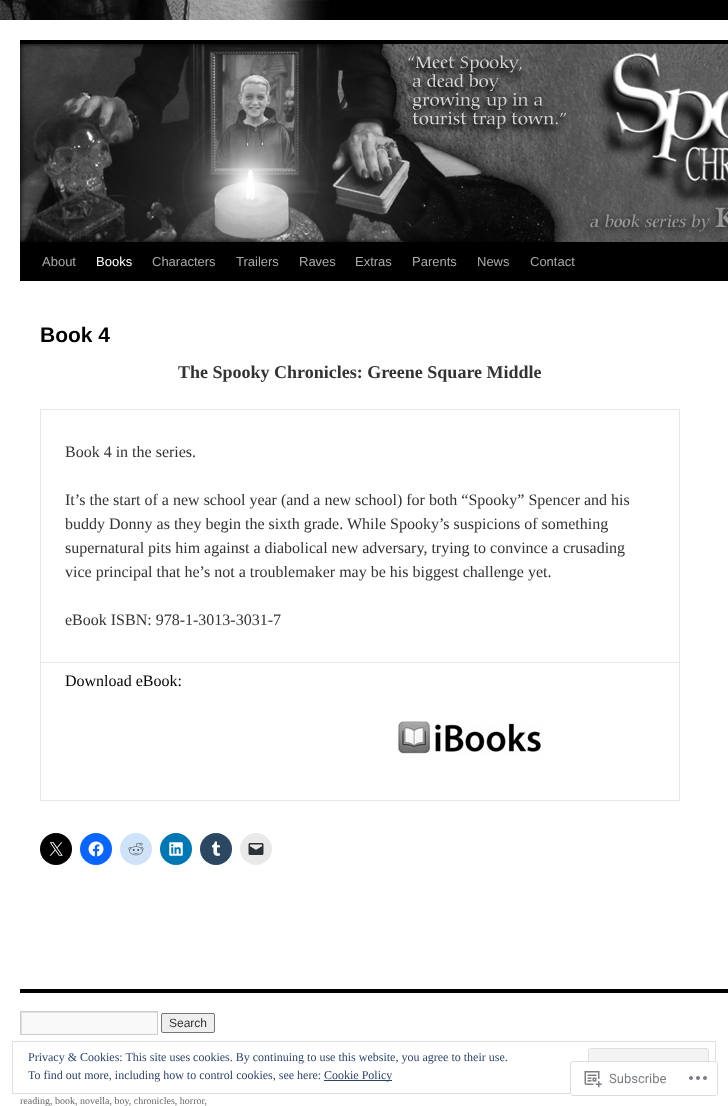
<!DOCTYPE html>
<meta charset="utf-8">
<style>body { margin: 0 } canvas { display: block }</style>
<canvas id="canvas" width="728" height="1106"></canvas>
<script type="module">
  const canvas = document.getElementById("canvas");
  const ctx = canvas.getContext("2d");
  ctx.miterLimit = 4;
  ctx.fontKerning = "normal";
  async function loadImage(src) {
    const img = new Image();
    img.src = src;
    await img.decode();
    return img;
  }

  ctx.fillStyle = "#000000";
  ctx.fillRect(0, 0, 728, 1106);
  ctx.drawImage(await loadImage("img1.png"), 0, 0, 329, 20);
  ctx.fillStyle = "#ffffff";
  ctx.fillRect(0, 20, 728, 1086);
  ctx.fillStyle = "#000000";
  ctx.fillRect(20, 40, 708, 4);
  ctx.fillRect(20, 242, 708, 39);
  ctx.drawImage(await loadImage("img2.png"), 20, 44, 708, 198);
  ctx.font = "13px Liberation Sans";
  ctx.fillStyle = "#aaaaaa";
  ctx.fillText("About", 42, 266);
  ctx.fillStyle = "#ffffff";
  ctx.fillText("Books", 96, 266);
  ctx.fillStyle = "#aaaaaa";
  ctx.fillText("Characters", 152, 266);
  ctx.fillText("Trailers", 236, 266);
  ctx.fillText("Raves", 299, 266);
  ctx.fillText("Extras", 355, 266);
  ctx.fillText("Parents", 412, 266);
  ctx.fillText("News", 477, 266);
  ctx.fillText("Contact", 530, 266);
  ctx.font = "bold 21px Liberation Sans";
  ctx.fillStyle = "#000000";
  ctx.fillText("Book 4", 40, 342);
  ctx.font = "bold 18px Liberation Serif";
  ctx.fillStyle = "#333333";
  ctx.fillText("The Spooky Chronicles: Greene Square Middle", 178, 378);
  ctx.fillStyle = "#e7e7e7";
  ctx.fillRect(40, 409, 640, 1);
  ctx.fillRect(679, 409, 1, 392);
  ctx.fillRect(40, 800, 640, 1);
  ctx.fillRect(40, 409, 1, 392);
  ctx.font = "16px Liberation Serif";
  ctx.fillStyle = "#333333";
  ctx.fillText("Book 4 in the series.", 65, 457);
  ctx.fillText("It’s the start of a new school year (and a new school) for both “Spooky” Spencer and his", 65, 505);
  ctx.fillText("buddy Donny as they begin the sixth grade. While Spooky’s suspicions of something", 65, 529);
  ctx.fillText("supernatural pits him against a diabolical new adversary, trying to convince a crusading", 65, 553);
  ctx.fillText("vice principal that he’s not a troublemaker may be his biggest challenge yet.", 65, 577);
  ctx.fillText("eBook ISBN: 978-1-3013-3031-7", 65, 625);
  ctx.fillStyle = "#e7e7e7";
  ctx.fillRect(40, 662, 640, 1);
  ctx.fillStyle = "#000000";
  ctx.fillText("Download eBook:", 65, 686);
  ctx.drawImage(await loadImage("img3.png"), 398, 721, 143, 33);
  ctx.beginPath();
  ctx.arc(56, 849, 16, 0, Math.PI * 2);
  ctx.fill();
  ctx.drawImage(await loadImage("img4.png"), 49, 842, 14, 14);
  ctx.fillStyle = "#0866ff";
  ctx.beginPath();
  ctx.arc(96, 849, 16, 0, Math.PI * 2);
  ctx.fill();
  ctx.drawImage(await loadImage("img5.png"), 88, 841, 16, 16);
  ctx.fillStyle = "#cee3f8";
  ctx.beginPath();
  ctx.arc(136, 849, 16, 0, Math.PI * 2);
  ctx.fill();
  ctx.drawImage(await loadImage("img6.png"), 128, 842, 16, 14);
  ctx.fillStyle = "#0077b5";
  ctx.beginPath();
  ctx.arc(176, 849, 16, 0, Math.PI * 2);
  ctx.fill();
  ctx.drawImage(await loadImage("img7.png"), 169, 842, 14, 14);
  ctx.fillStyle = "#2c4762";
  ctx.beginPath();
  ctx.arc(216, 849, 16, 0, Math.PI * 2);
  ctx.fill();
  ctx.drawImage(await loadImage("img8.png"), 211, 841, 10, 15);
  ctx.fillStyle = "#e9e9e9";
  ctx.beginPath();
  ctx.arc(256, 849, 16, 0, Math.PI * 2);
  ctx.fill();
  ctx.drawImage(await loadImage("img9.png"), 248, 843, 16, 12);
  ctx.fillStyle = "#000000";
  ctx.fillRect(20, 989, 708, 4);
  ctx.fillStyle = "#f9f9f9";
  ctx.fillRect(22, 1013, 135, 21);
  ctx.save();
  ctx.beginPath();
  ctx.rect(21, 1012, 136, 22);
  ctx.clip();
  ctx.fillStyle = "#e0e0e0";
  ctx.beginPath();
  ctx.moveTo(-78, 913);
  ctx.lineTo(256, 913);
  ctx.lineTo(256, 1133);
  ctx.lineTo(-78, 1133);
  ctx.closePath();
  ctx.moveTo(22, 1013);
  ctx.lineTo(158, 1013);
  ctx.lineTo(158, 1035);
  ctx.lineTo(22, 1035);
  ctx.closePath();
  ctx.fill("evenodd");
  ctx.restore();
  ctx.strokeStyle = "#cccccc";
  ctx.strokeRect(20.5, 1011.5, 137, 23);
  ctx.fillStyle = "#efefef";
  ctx.beginPath();
  ctx.roundRect(161.5, 1013.5, 53, 19, 1.5);
  ctx.fill();
  ctx.strokeStyle = "#767676";
  ctx.stroke();
  ctx.font = "12px Liberation Sans";
  ctx.fillStyle = "#333333";
  ctx.fillText("Search", 169, 1027);
  ctx.font = "10px Liberation Serif";
  ctx.fillStyle = "#666666";
  ctx.fillText("reading, book, novella, boy, chronicles, horror,", 20, 1104);
  ctx.strokeStyle = "#dedede";
  ctx.strokeRect(12.5, 1041.5, 703, 52);
  ctx.font = "12px Liberation Serif";
  ctx.fillStyle = "#2e4467";
  ctx.fillText("Privacy & Cookies: This site uses cookies. By continuing to use this website, you agree to their use.", 28, 1061);
  ctx.fillStyle = "#f3f3f3";
  ctx.beginPath();
  ctx.roundRect(588.5, 1048.5, 120, 38, 2.5);
  ctx.fill();
  ctx.stroke();
  ctx.fillStyle = "#2e4467";
  ctx.fillText("To find out more, including how to control cookies, see here:", 28, 1079);
  ctx.fillRect(324, 1080, 68, 1);
  ctx.fillText("Cookie Policy", 324, 1079);
  ctx.fillStyle = "rgba(255, 255, 255, 0.98)";
  ctx.beginPath();
  ctx.roundRect(570, 1061, 148, 35, 3);
  ctx.fill();
  ctx.beginPath();
  ctx.roundRect(570.5, 1061.5, 147, 34, 2.5);
  ctx.strokeStyle = "rgba(220, 220, 222, 0.98)";
  ctx.stroke();
  ctx.drawImage(await loadImage("img10.png"), 584, 1071, 18, 17);
  ctx.font = "13px Roboto";
  ctx.fillStyle = "#7a7e84";
  ctx.fillText("Subscribe", 609, 1083);
  ctx.drawImage(await loadImage("img11.png"), 689, 1076, 18, 4);
</script>
